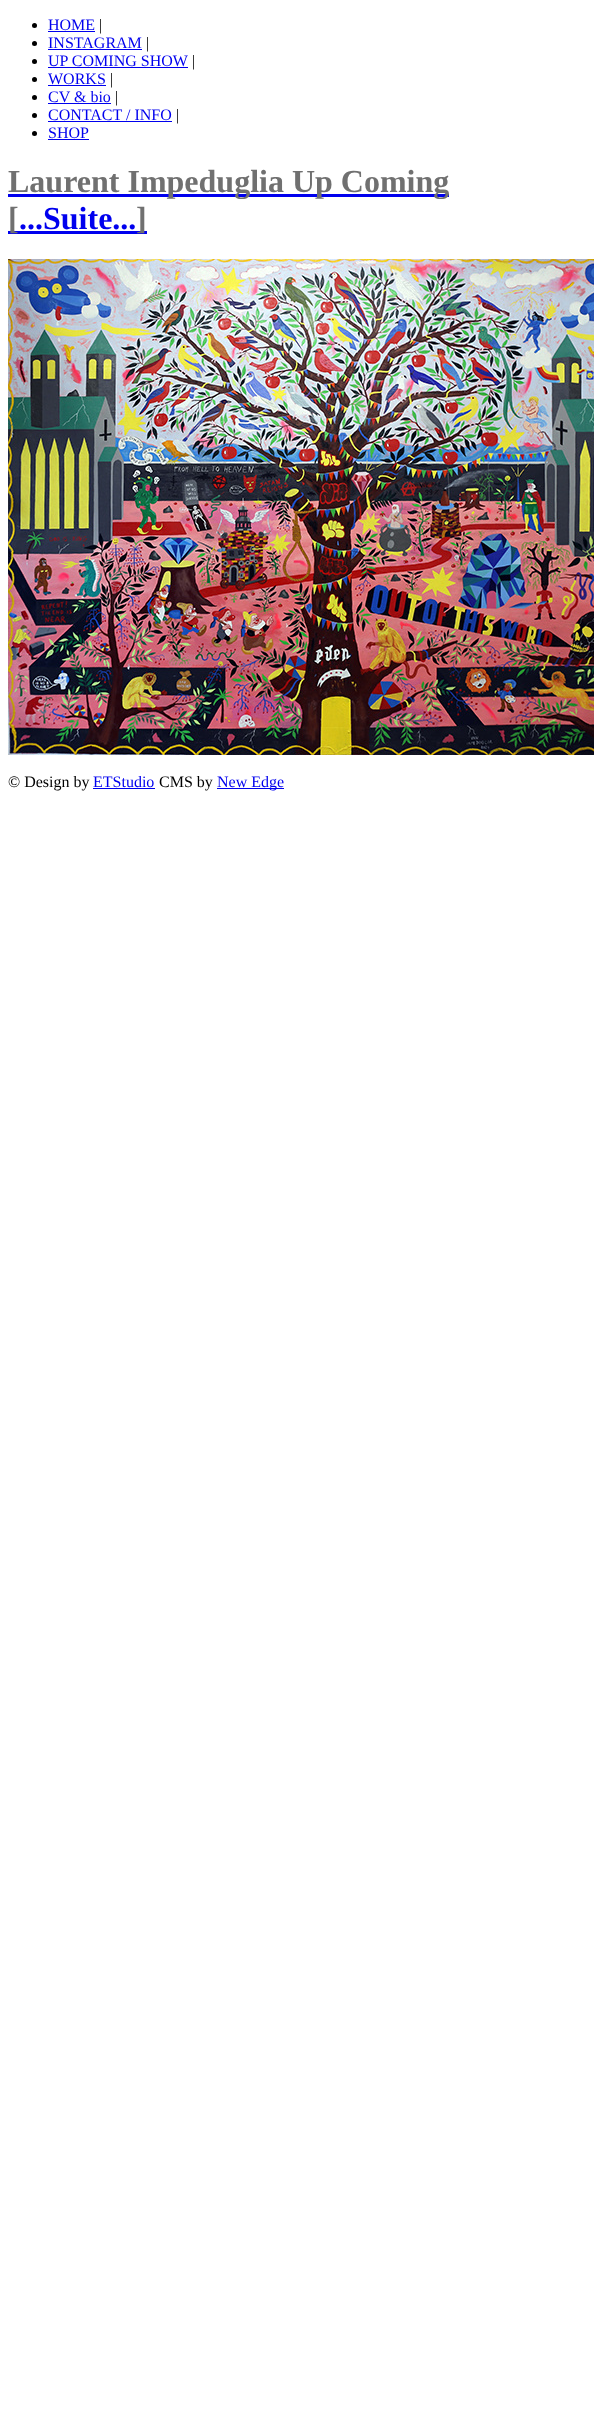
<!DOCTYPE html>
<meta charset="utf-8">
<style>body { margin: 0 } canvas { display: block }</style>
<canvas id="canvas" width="594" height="2426"></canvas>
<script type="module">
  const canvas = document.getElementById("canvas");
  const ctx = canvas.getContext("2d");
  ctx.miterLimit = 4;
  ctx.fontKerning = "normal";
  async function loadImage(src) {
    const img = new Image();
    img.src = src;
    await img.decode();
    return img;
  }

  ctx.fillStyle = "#ffffff";
  ctx.fillRect(0, 0, 594, 2426);
  ctx.fillStyle = "#000000";
  ctx.beginPath();
  ctx.arc(34.5, 25.5, 2.5, 0, Math.PI * 2);
  ctx.fill();
  ctx.font = "16px Liberation Serif";
  ctx.fillStyle = "#0000ee";
  ctx.fillText("HOME", 48, 30);
  ctx.fillRect(48, 31, 47, 1);
  ctx.fillStyle = "#000000";
  ctx.fillText("|", 99, 30);
  ctx.beginPath();
  ctx.arc(34.5, 43.5, 2.5, 0, Math.PI * 2);
  ctx.fill();
  ctx.fillStyle = "#0000ee";
  ctx.fillText("INSTAGRAM", 48, 48);
  ctx.fillRect(48, 49, 94, 1);
  ctx.fillStyle = "#000000";
  ctx.fillText("|", 146, 48);
  ctx.beginPath();
  ctx.arc(34.5, 61.5, 2.5, 0, Math.PI * 2);
  ctx.fill();
  ctx.fillStyle = "#0000ee";
  ctx.fillText("UP COMING SHOW", 48, 66);
  ctx.fillRect(48, 67, 140, 1);
  ctx.fillStyle = "#000000";
  ctx.fillText("|", 192, 66);
  ctx.beginPath();
  ctx.arc(34.5, 79.5, 2.5, 0, Math.PI * 2);
  ctx.fill();
  ctx.fillStyle = "#0000ee";
  ctx.fillText("WORKS", 48, 84);
  ctx.fillRect(48, 85, 58, 1);
  ctx.fillStyle = "#000000";
  ctx.fillText("|", 110, 84);
  ctx.beginPath();
  ctx.arc(34.5, 97.5, 2.5, 0, Math.PI * 2);
  ctx.fill();
  ctx.fillStyle = "#0000ee";
  ctx.fillText("CV & bio", 48, 102);
  ctx.fillRect(48, 103, 63, 1);
  ctx.fillStyle = "#000000";
  ctx.fillText("|", 115, 102);
  ctx.beginPath();
  ctx.arc(34.5, 115.5, 2.5, 0, Math.PI * 2);
  ctx.fill();
  ctx.fillStyle = "#0000ee";
  ctx.fillText("CONTACT / INFO", 48, 120);
  ctx.fillRect(48, 121, 124, 1);
  ctx.fillStyle = "#000000";
  ctx.fillText("|", 176, 120);
  ctx.beginPath();
  ctx.arc(34.5, 133.5, 2.5, 0, Math.PI * 2);
  ctx.fill();
  ctx.fillStyle = "#0000ee";
  ctx.fillText("SHOP", 48, 138);
  ctx.fillRect(48, 139, 41, 1);
  ctx.fillRect(8, 194, 441, 3);
  ctx.font = "bold 32px Liberation Serif";
  ctx.fillStyle = "#707070";
  ctx.fillText("Laurent Impeduglia Up Coming", 8, 192);
  ctx.fillStyle = "#0000ee";
  ctx.fillRect(8, 231, 139, 3);
  ctx.fillStyle = "#707070";
  ctx.fillText("[", 8, 229);
  ctx.fillStyle = "#0000ee";
  ctx.fillText("...Suite...", 19, 229);
  ctx.fillStyle = "#707070";
  ctx.fillText("]", 136, 229);
  ctx.drawImage(await loadImage("img1.png"), 8, 259, 586, 496);
  ctx.font = "16px Liberation Serif";
  ctx.fillStyle = "#000000";
  ctx.fillText("© Design by", 8, 787);
  ctx.fillStyle = "#0000ee";
  ctx.fillText("ETStudio", 93, 787);
  ctx.fillRect(93, 788, 62, 1);
  ctx.fillStyle = "#000000";
  ctx.fillText("CMS by", 159, 787);
  ctx.fillStyle = "#0000ee";
  ctx.fillRect(217, 788, 67, 1);
  ctx.fillText("New Edge", 217, 787);
</script>
